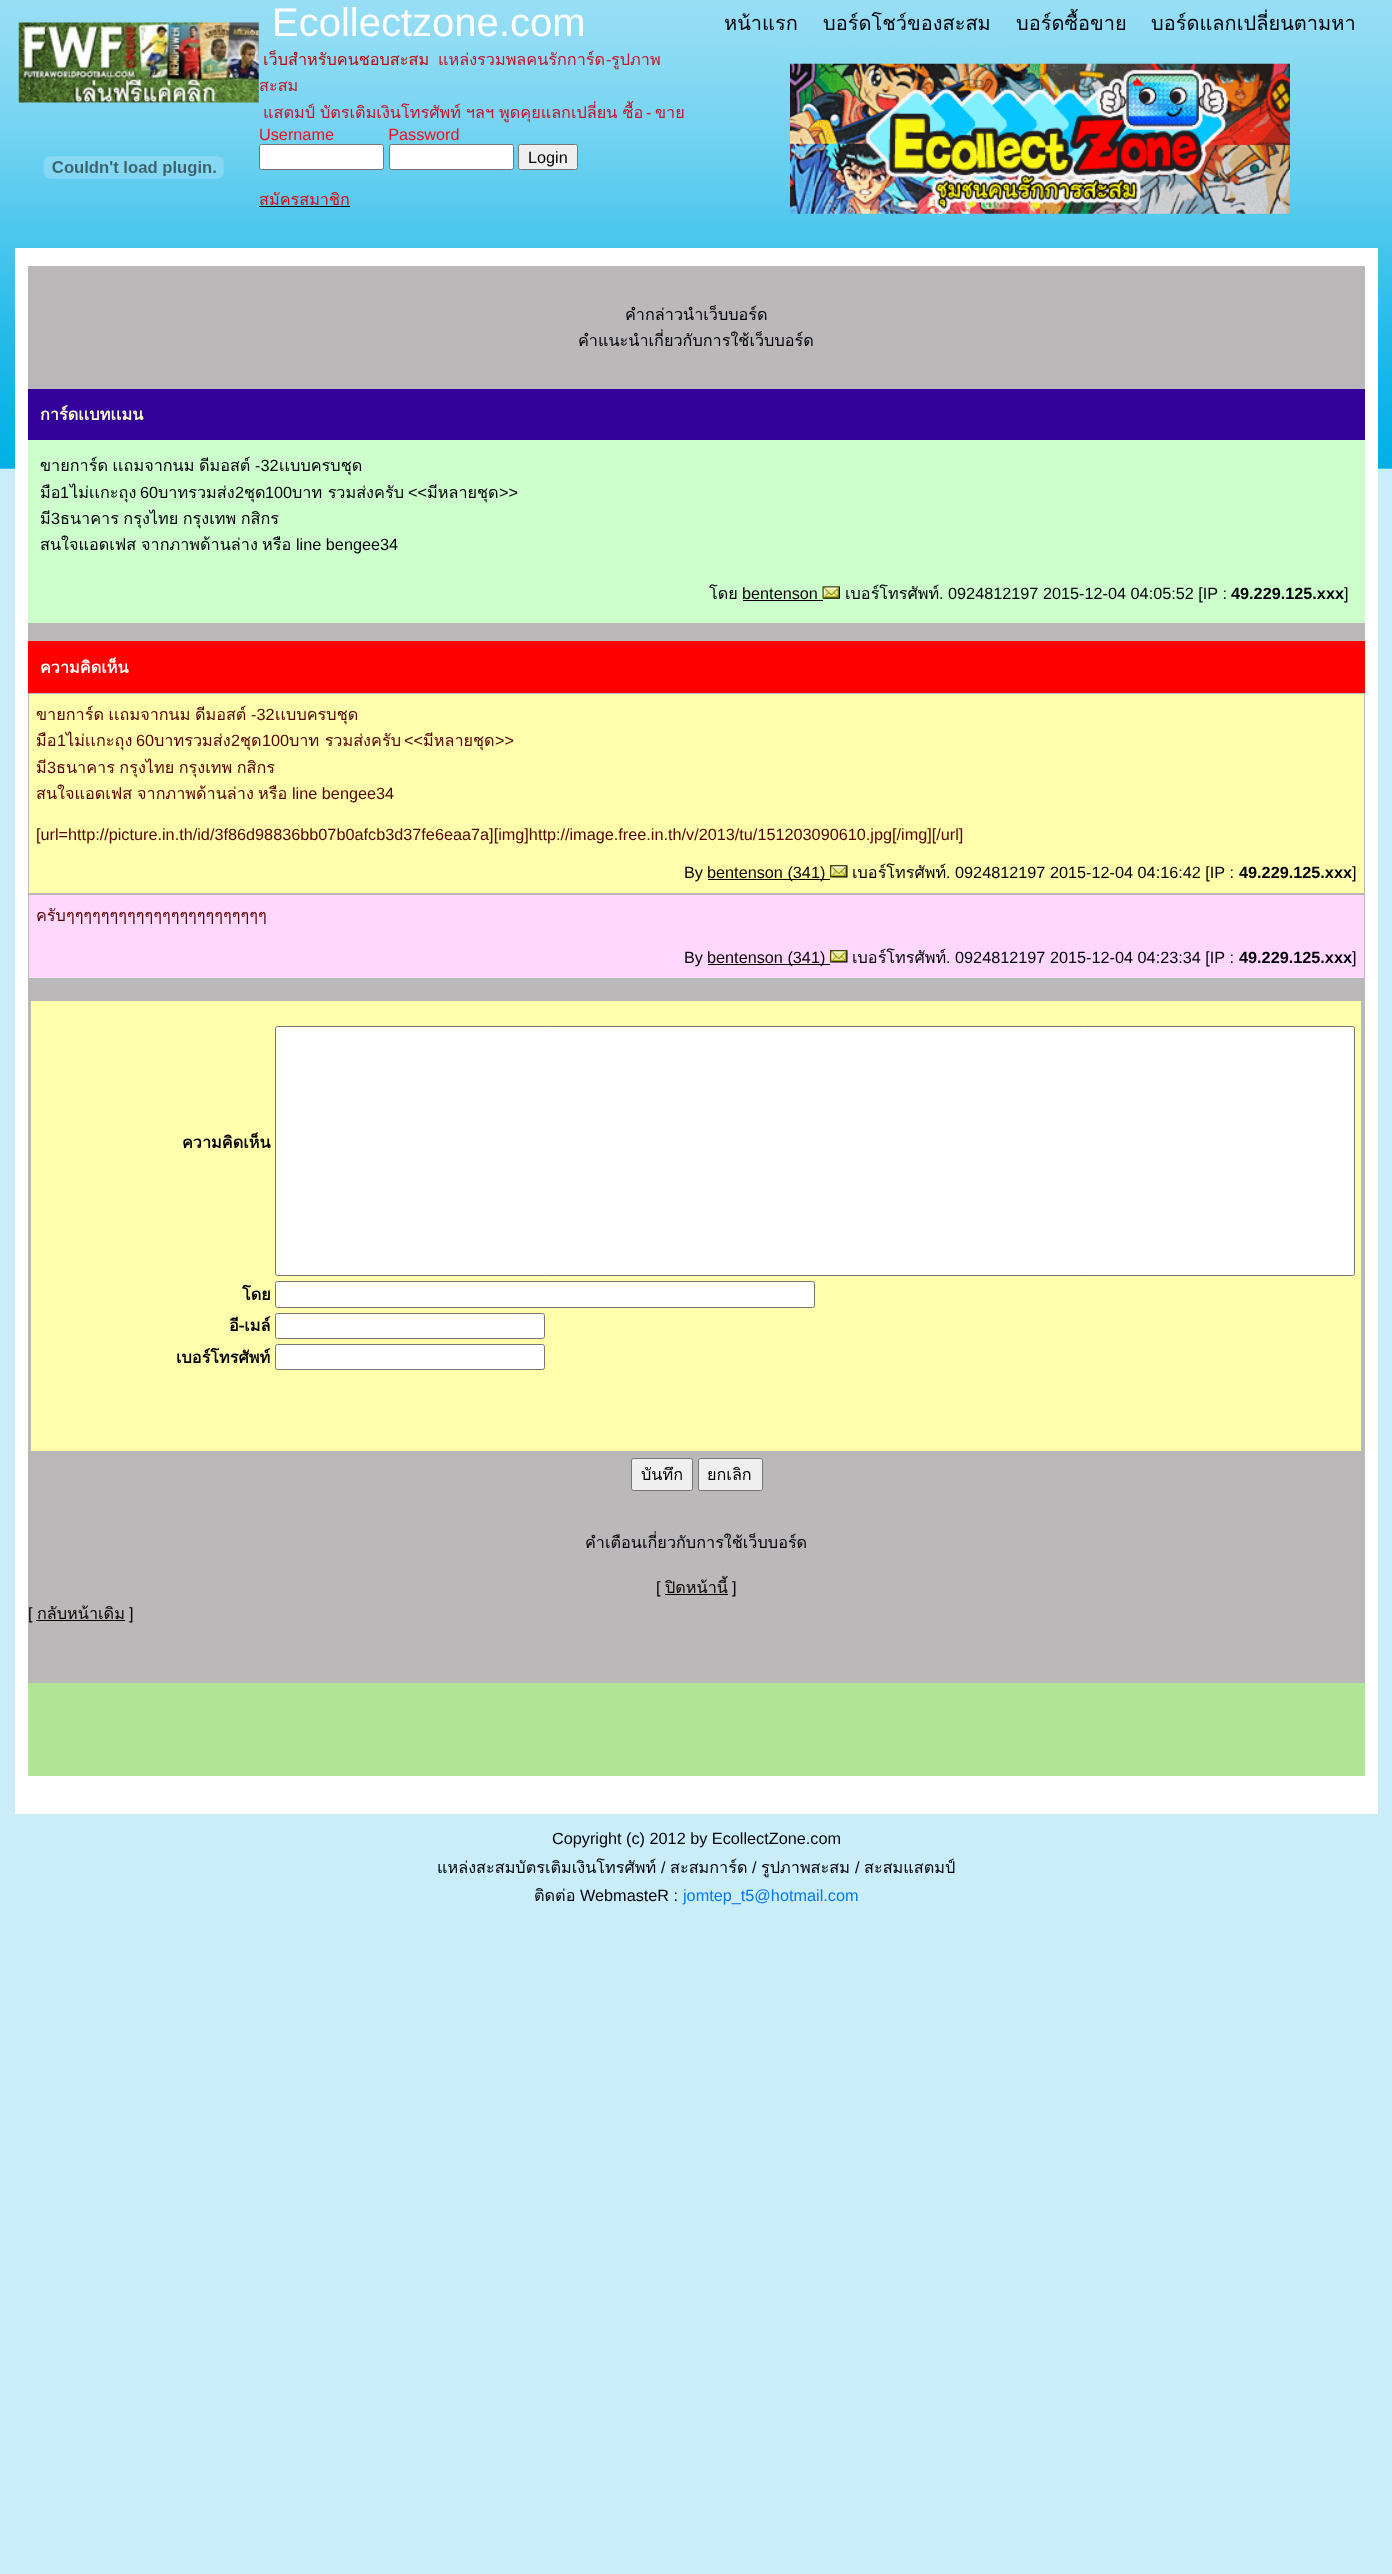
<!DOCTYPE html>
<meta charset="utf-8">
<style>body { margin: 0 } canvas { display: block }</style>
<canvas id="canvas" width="1392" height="2574"></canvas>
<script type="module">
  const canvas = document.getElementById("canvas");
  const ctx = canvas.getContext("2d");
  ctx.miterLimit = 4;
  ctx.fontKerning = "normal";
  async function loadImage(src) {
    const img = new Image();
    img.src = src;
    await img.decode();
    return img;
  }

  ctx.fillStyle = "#c9edf9";
  ctx.fillRect(0, 0, 1392, 2574);
  ctx.drawImage(await loadImage("img1.png"), 0, 0, 1392, 469);
  ctx.font = "40px Liberation Sans";
  ctx.fillStyle = "#ffffff";
  ctx.fillText("Ecollectzone.com", 272, 36);
  ctx.font = "20px Loma";
  ctx.fillStyle = "#000008";
  ctx.fillText("หน้าแรก", 724, 30);
  ctx.fillText("บอร์ดโชว์ของสะสม", 823, 30);
  ctx.fillText("บอร์ดซื้อขาย", 1016, 30);
  ctx.fillText("บอร์ดแลกเปลี่ยนตามหา", 1151, 30);
  ctx.drawImage(await loadImage("img2.png"), 18, 22, 241, 81);
  ctx.font = "16.25px Loma";
  ctx.fillStyle = "#bd0909";
  ctx.fillText("เว็บสำหรับคนชอบสะสม", 263, 65);
  ctx.fillStyle = "#c9122b";
  ctx.fillText("แหล่งรวมพลคนรักการ์ด", 438, 65);
  ctx.font = "16.25px Liberation Sans";
  ctx.fillText("-", 606, 65);
  ctx.font = "16.25px Loma";
  ctx.fillText("รูปภาพ", 611, 65);
  ctx.fillText("สะสม", 259, 91);
  ctx.drawImage(await loadImage("img3.png"), 790, 63, 500, 151);
  ctx.wordSpacing = "-0.5px";
  ctx.fillText("แสตมป์ บัตรเติมเงินโทรศัพท์ ฯลฯ พูดคุยแลกเปลี่ยน ซื้อ", 263, 118);
  ctx.wordSpacing = "0px";
  ctx.font = "16.25px Liberation Sans";
  ctx.fillText("-", 646, 118);
  ctx.font = "16.25px Loma";
  ctx.fillText("ขาย", 655, 118);
  ctx.drawImage(await loadImage("img4.png"), 43, 156, 181, 23);
  ctx.font = "16.25px Liberation Sans";
  ctx.fillStyle = "#f50c23";
  ctx.fillText("Username            Password", 259, 140);
  ctx.fillStyle = "#ffffff";
  ctx.beginPath();
  ctx.roundRect(259.5, 144.5, 124, 25, 2);
  ctx.fill();
  ctx.strokeStyle = "#767676";
  ctx.stroke();
  ctx.beginPath();
  ctx.roundRect(389.5, 144.5, 124, 25, 2);
  ctx.fill();
  ctx.stroke();
  ctx.fillStyle = "#efefef";
  ctx.beginPath();
  ctx.roundRect(518.5, 144.5, 59, 25, 2);
  ctx.fill();
  ctx.stroke();
  ctx.fillStyle = "#000000";
  ctx.fillText("Login", 528, 163);
  ctx.font = "16.25px Loma";
  ctx.fillStyle = "#de0715";
  ctx.fillText("สมัครสมาชิก", 259, 205);
  ctx.fillStyle = "#0a0101";
  ctx.fillRect(259, 206, 91, 1);
  ctx.fillStyle = "#ffffff";
  ctx.fillRect(15, 248, 1363, 1566);
  ctx.fillStyle = "#bab8b8";
  ctx.fillRect(28, 266, 1337, 1417);
  ctx.fillStyle = "#000008";
  ctx.fillText("คำกล่าวนำเว็บบอร์ด", 625, 320);
  ctx.fillText("คำแนะนำเกี่ยวกับการใช้เว็บบอร์ด", 578, 346);
  ctx.fillStyle = "#330099";
  ctx.fillRect(28, 389, 1337, 51);
  ctx.font = "bold 16.25px Loma";
  ctx.fillStyle = "#ffffcc";
  ctx.fillText("การ์ดเเบทเเมน", 40, 420);
  ctx.fillStyle = "#ccffcc";
  ctx.fillRect(28, 440, 1337, 183);
  ctx.wordSpacing = "-1px";
  ctx.font = "16.25px Loma";
  ctx.fillStyle = "#000008";
  ctx.fillText("ขายการ์ด เเถมจากนม ดีมอสต์", 40, 471);
  ctx.wordSpacing = "0px";
  ctx.font = "16.25px Liberation Sans";
  ctx.fillText("-32", 255, 471);
  ctx.font = "16.25px Loma";
  ctx.fillText("เเบบครบชุด", 279, 471);
  ctx.fillText("มือ", 40, 498);
  ctx.font = "16.25px Liberation Sans";
  ctx.fillText("1", 60, 498);
  ctx.font = "16.25px Loma";
  ctx.fillText("ไม่เเกะถุง", 70, 498);
  ctx.font = "16.25px Liberation Sans";
  ctx.fillText("60", 140, 498);
  ctx.font = "16.25px Loma";
  ctx.fillText("บาทรวมส่ง", 158, 498);
  ctx.font = "16.25px Liberation Sans";
  ctx.fillText("2", 235, 498);
  ctx.fillText("100", 265, 498);
  ctx.font = "16.25px Loma";
  ctx.fillText("บาท รวมส่งครับ", 292, 498);
  ctx.font = "16.25px Liberation Sans";
  ctx.fillText("<<", 408, 498);
  ctx.font = "16.25px Loma";
  ctx.fillText("มีหลายชุด", 427, 498);
  ctx.fillText("ชุด", 244, 498);
  ctx.font = "16.25px Liberation Sans";
  ctx.fillText(">>", 499, 498);
  ctx.font = "16.25px Loma";
  ctx.fillText("มี", 40, 524);
  ctx.font = "16.25px Liberation Sans";
  ctx.fillText("3", 51, 524);
  ctx.wordSpacing = "-1px";
  ctx.font = "16.25px Loma";
  ctx.fillText("ธนาคาร กรุงไทย กรุงเทพ กสิกร", 60, 524);
  ctx.wordSpacing = "0px";
  ctx.fillText("สนใจแอดเฟส", 40, 550);
  ctx.fillText("จากภาพด้านล่าง", 141, 550);
  ctx.fillText("หรือ", 262, 550);
  ctx.font = "16.25px Liberation Sans";
  ctx.fillText("line bengee34", 296, 550);
  ctx.font = "16.25px Loma";
  ctx.fillText("โดย", 709, 599);
  ctx.font = "16.25px Liberation Sans";
  ctx.fillStyle = "#0a0101";
  ctx.fillText("bentenson", 742, 599);
  ctx.fillRect(743, 600, 80, 1);
  ctx.drawImage(await loadImage("img5.png"), 822, 586, 18, 13);
  ctx.font = "16.25px Loma";
  ctx.fillStyle = "#000008";
  ctx.fillText("เบอร์โทรศัพท์", 845, 599);
  ctx.font = "16.25px Liberation Sans";
  ctx.fillText(". 0924812197 2015-12-04 04:05:52 [IP :", 939, 599);
  ctx.font = "bold 16.25px Liberation Sans";
  ctx.fillText("49.229.125.xxx", 1231, 599);
  ctx.font = "16.25px Liberation Sans";
  ctx.fillText("]", 1344, 599);
  ctx.fillStyle = "#ff0000";
  ctx.fillRect(28, 641, 1337, 52);
  ctx.font = "bold 16.25px Loma";
  ctx.fillStyle = "#ffffff";
  ctx.fillText("ความคิดเห็น", 40, 673);
  ctx.fillStyle = "#ffffac";
  ctx.fillRect(29, 694, 1335, 199);
  ctx.wordSpacing = "-1px";
  ctx.font = "16.25px Loma";
  ctx.fillStyle = "#560000";
  ctx.fillText("ขายการ์ด เเถมจากนม ดีมอสต์", 36, 720);
  ctx.wordSpacing = "0px";
  ctx.font = "16.25px Liberation Sans";
  ctx.fillText("-32", 251, 720);
  ctx.font = "16.25px Loma";
  ctx.fillText("เเบบครบชุด", 275, 720);
  ctx.fillText("มือ", 36, 746);
  ctx.font = "16.25px Liberation Sans";
  ctx.fillText("1", 57, 746);
  ctx.font = "16.25px Loma";
  ctx.fillText("ไม่เเกะถุง", 66, 746);
  ctx.font = "16.25px Liberation Sans";
  ctx.fillText("60", 136, 746);
  ctx.font = "16.25px Loma";
  ctx.fillText("บาทรวมส่ง", 154, 746);
  ctx.font = "16.25px Liberation Sans";
  ctx.fillText("2", 231, 746);
  ctx.font = "16.25px Loma";
  ctx.fillText("ชุด", 240, 746);
  ctx.font = "16.25px Liberation Sans";
  ctx.fillText("100", 262, 746);
  ctx.font = "16.25px Loma";
  ctx.fillText("บาท รวมส่งครับ", 289, 746);
  ctx.font = "16.25px Liberation Sans";
  ctx.fillText("<<", 404, 746);
  ctx.font = "16.25px Loma";
  ctx.fillText("มีหลายชุด", 423, 746);
  ctx.font = "16.25px Liberation Sans";
  ctx.fillText(">>", 495, 746);
  ctx.font = "16.25px Loma";
  ctx.fillText("มี", 36, 773);
  ctx.font = "16.25px Liberation Sans";
  ctx.fillText("3", 47, 773);
  ctx.wordSpacing = "-1px";
  ctx.font = "16.25px Loma";
  ctx.fillText("ธนาคาร กรุงไทย กรุงเทพ กสิกร", 56, 773);
  ctx.wordSpacing = "0px";
  ctx.fillText("สนใจแอดเฟส", 36, 799);
  ctx.fillText("จากภาพด้านล่าง", 137, 799);
  ctx.fillText("หรือ", 258, 799);
  ctx.font = "16.25px Liberation Sans";
  ctx.fillText("line bengee34", 292, 799);
  ctx.fillText("[url=http://picture.in.th/id/3f86d98836bb07b0afcb3d37fe6eaa7a][img]http://image.free.in.th/v/2013/tu/151203090610.jpg[/img][/url]", 36, 840);
  ctx.fillStyle = "#000008";
  ctx.fillText("By", 684, 878);
  ctx.fillStyle = "#0a0101";
  ctx.fillRect(708, 879, 122, 1);
  ctx.fillText("bentenson (341)", 707, 878);
  ctx.drawImage(await loadImage("img6.png"), 830, 865, 18, 13);
  ctx.font = "16.25px Loma";
  ctx.fillStyle = "#000008";
  ctx.fillText("เบอร์โทรศัพท์", 852, 878);
  ctx.font = "16.25px Liberation Sans";
  ctx.fillText(". 0924812197 2015-12-04 04:16:42 [IP :", 946, 878);
  ctx.font = "bold 16.25px Liberation Sans";
  ctx.fillText("49.229.125.xxx", 1239, 878);
  ctx.font = "16.25px Liberation Sans";
  ctx.fillText("]", 1352, 878);
  ctx.fillStyle = "#ffd7ff";
  ctx.fillRect(29, 895, 1335, 83);
  ctx.font = "16.25px Loma";
  ctx.fillStyle = "#560000";
  ctx.fillText("ครับๆๆๆๆๆๆๆๆๆๆๆๆๆๆๆๆๆๆๆๆๆๆๆ", 36, 921);
  ctx.font = "16.25px Liberation Sans";
  ctx.fillStyle = "#000008";
  ctx.fillText("By", 684, 963);
  ctx.fillStyle = "#0a0101";
  ctx.fillRect(708, 964, 122, 1);
  ctx.fillText("bentenson (341)", 707, 963);
  ctx.drawImage(await loadImage("img7.png"), 830, 950, 18, 13);
  ctx.font = "16.25px Loma";
  ctx.fillStyle = "#000008";
  ctx.fillText("เบอร์โทรศัพท์", 852, 963);
  ctx.font = "16.25px Liberation Sans";
  ctx.fillText(". 0924812197 2015-12-04 04:23:34 [IP :", 946, 963);
  ctx.font = "bold 16.25px Liberation Sans";
  ctx.fillText("49.229.125.xxx", 1239, 963);
  ctx.font = "16.25px Liberation Sans";
  ctx.fillText("]", 1352, 963);
  ctx.fillStyle = "#ffffac";
  ctx.fillRect(31, 1001, 1330, 450);
  ctx.font = "bold 16.25px Loma";
  ctx.fillStyle = "#000008";
  ctx.fillText("ความคิดเห็น", 182, 1148);
  ctx.fillStyle = "#ffffff";
  ctx.beginPath();
  ctx.roundRect(275.5, 1026.5, 1079, 249, 2);
  ctx.fill();
  ctx.stroke();
  ctx.fillStyle = "#000008";
  ctx.fillText("โดย", 242, 1300);
  ctx.fillStyle = "#ffffff";
  ctx.beginPath();
  ctx.roundRect(275.5, 1281.5, 539, 26, 2);
  ctx.fill();
  ctx.stroke();
  ctx.fillStyle = "#000008";
  ctx.fillText("อี-เมล์", 229, 1331);
  ctx.fillStyle = "#ffffff";
  ctx.beginPath();
  ctx.roundRect(275.5, 1313.5, 269, 25, 2);
  ctx.fill();
  ctx.stroke();
  ctx.fillStyle = "#000008";
  ctx.fillText("เบอร์โทรศัพท์", 176, 1363);
  ctx.fillStyle = "#ffffff";
  ctx.beginPath();
  ctx.roundRect(275.5, 1344.5, 269, 25, 2);
  ctx.fill();
  ctx.stroke();
  ctx.fillStyle = "#efefef";
  ctx.beginPath();
  ctx.roundRect(631.5, 1458.5, 61, 32, 2);
  ctx.fill();
  ctx.stroke();
  ctx.font = "16.25px Loma";
  ctx.fillStyle = "#000000";
  ctx.fillText("บันทึก", 641, 1480);
  ctx.fillStyle = "#efefef";
  ctx.beginPath();
  ctx.roundRect(698.5, 1458.5, 64, 32, 2);
  ctx.fill();
  ctx.stroke();
  ctx.fillStyle = "#000000";
  ctx.fillText("ยกเลิก", 707, 1480);
  ctx.fillStyle = "#000008";
  ctx.fillText("คำเตือนเกี่ยวกับการใช้เว็บบอร์ด", 585, 1548);
  ctx.font = "16.25px Liberation Sans";
  ctx.fillText("[", 656, 1593);
  ctx.font = "16.25px Loma";
  ctx.fillStyle = "#0a0101";
  ctx.fillText("ปิดหน้านี้", 665, 1593);
  ctx.fillRect(665, 1594, 63, 1);
  ctx.font = "16.25px Liberation Sans";
  ctx.fillStyle = "#000008";
  ctx.fillText("]", 732, 1593);
  ctx.fillText("[", 28, 1619);
  ctx.font = "16.25px Loma";
  ctx.fillStyle = "#0a0101";
  ctx.fillText("กลับหน้าเดิม", 37, 1619);
  ctx.fillRect(36, 1620, 89, 1);
  ctx.font = "16.25px Liberation Sans";
  ctx.fillStyle = "#000008";
  ctx.fillText("]", 129, 1619);
  ctx.fillStyle = "#b0e695";
  ctx.fillRect(28, 1683, 1337, 93);
  ctx.fillStyle = "#000008";
  ctx.fillText("Copyright (c) 2012 by EcollectZone.com", 552, 1844);
  ctx.font = "16.25px Loma";
  ctx.fillText("แหล่งสะสมบัตรเติมเงินโทรศัพท์", 437, 1873);
  ctx.font = "16.25px Liberation Sans";
  ctx.fillText("/", 661, 1873);
  ctx.font = "16.25px Loma";
  ctx.fillText("สะสมการ์ด", 670, 1873);
  ctx.font = "16.25px Liberation Sans";
  ctx.fillText("/", 752, 1873);
  ctx.font = "16.25px Loma";
  ctx.fillText("รูปภาพสะสม", 761, 1873);
  ctx.font = "16.25px Liberation Sans";
  ctx.fillText("/", 855, 1873);
  ctx.font = "16.25px Loma";
  ctx.fillText("สะสมแสตมป์", 864, 1873);
  ctx.fillText("ติดต่อ", 534, 1901);
  ctx.font = "16.25px Liberation Sans";
  ctx.fillText("WebmasteR :", 580, 1901);
  ctx.fillStyle = "#0578eb";
  ctx.fillText("jomtep_t5@hotmail.com", 683, 1901);
</script>
